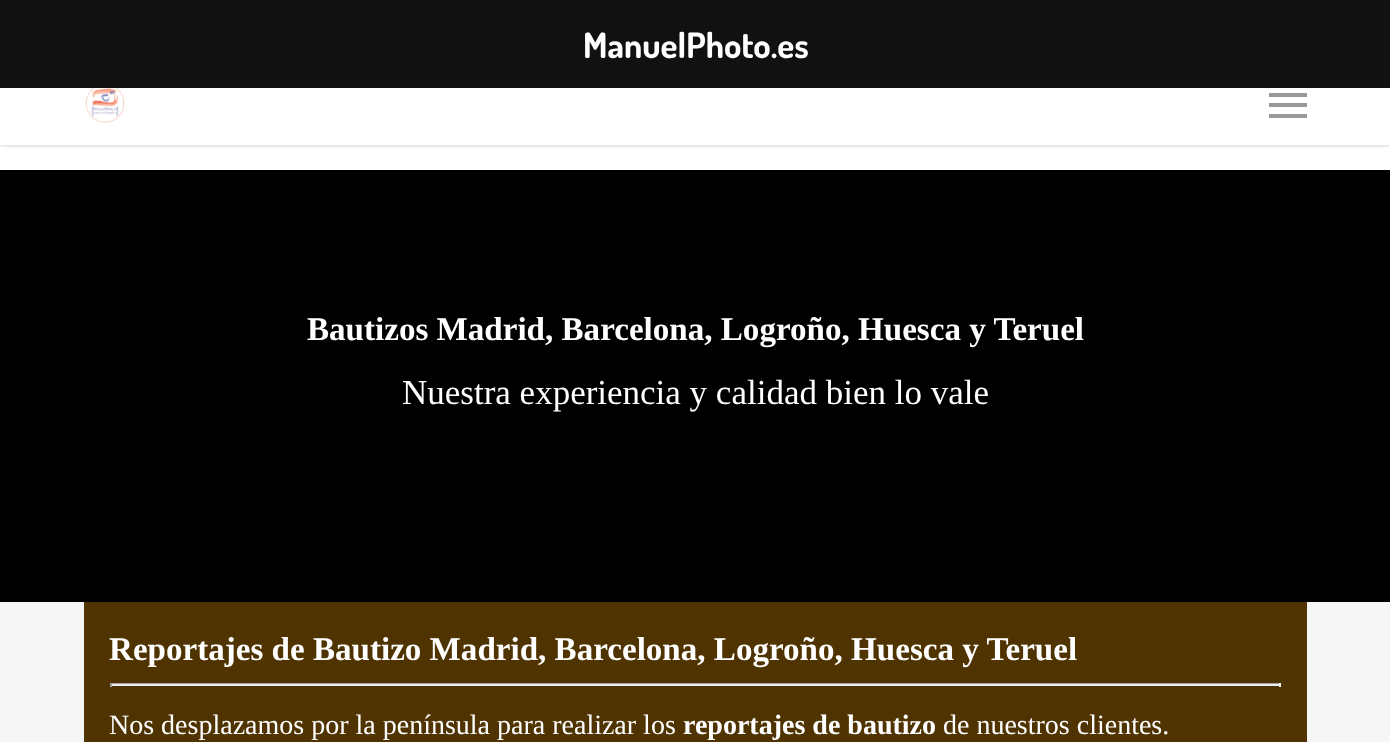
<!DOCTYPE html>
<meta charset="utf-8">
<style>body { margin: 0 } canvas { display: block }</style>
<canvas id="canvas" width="1390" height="742"></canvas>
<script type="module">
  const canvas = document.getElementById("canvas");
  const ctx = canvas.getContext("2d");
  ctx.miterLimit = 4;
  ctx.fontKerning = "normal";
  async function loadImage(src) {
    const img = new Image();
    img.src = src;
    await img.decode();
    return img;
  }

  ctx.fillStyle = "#ffffff";
  ctx.fillRect(0, 0, 1390, 742);
  ctx.save();
  ctx.beginPath();
  ctx.rect(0, 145, 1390, 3);
  ctx.clip();
  ctx.fillStyle = "rgba(0, 0, 0, 0.22)";
  ctx.filter = "blur(2.5px)";
  ctx.beginPath();
  ctx.rect(0, 0, 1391, 145);
  ctx.fill();
  ctx.filter = "none";
  ctx.restore();
  ctx.drawImage(await loadImage("img1.png"), 85, 88, 40, 35);
  ctx.fillStyle = "#999999";
  ctx.fillRect(1269, 93, 38, 4);
  ctx.fillRect(1269, 114, 38, 4);
  ctx.fillRect(1269, 103, 38, 4);
  ctx.fillStyle = "#111111";
  ctx.fillRect(0, 0, 1390, 88);
  ctx.font = "bold 35px Dosis";
  ctx.fillStyle = "#ffffff";
  ctx.fillText("ManuelPhoto.es", 583, 58);
  ctx.fillStyle = "#000000";
  ctx.fillRect(0, 170, 1390, 432);
  ctx.font = "bold 33.1px Liberation Serif";
  ctx.fillStyle = "#ffffff";
  ctx.fillText("Bautizos Madrid, Barcelona, Logroño, Huesca y Teruel", 307, 340);
  ctx.font = "35px Liberation Serif";
  ctx.fillText("Nuestra experiencia y calidad bien lo vale", 402, 404);
  ctx.fillStyle = "#f6f6f6";
  ctx.fillRect(0, 602, 1390, 140);
  ctx.fillStyle = "#4f3300";
  ctx.fillRect(84, 602, 1223, 140);
  ctx.font = "bold 33.1px Liberation Serif";
  ctx.fillStyle = "#ffffff";
  ctx.fillText("Reportajes de Bautizo Madrid, Barcelona, Logroño, Huesca y Teruel", 109, 660);
  ctx.fillStyle = "#9f9f9f";
  ctx.fillRect(110, 683, 1171, 1);
  ctx.fillStyle = "#eeeeee";
  ctx.fillRect(1279, 683, 2, 4);
  ctx.fillRect(110, 684, 1171, 2);
  ctx.fillStyle = "#9f9f9f";
  ctx.fillRect(110, 683, 2, 4);
  ctx.font = "28px Liberation Serif";
  ctx.fillStyle = "#ffffff";
  ctx.fillText("Nos desplazamos por la península para realizar los", 109, 734);
  ctx.font = "bold 28px Liberation Serif";
  ctx.fillText("reportajes de bautizo", 683, 734);
  ctx.font = "28px Liberation Serif";
  ctx.fillText("de nuestros clientes.", 943, 734);
</script>
